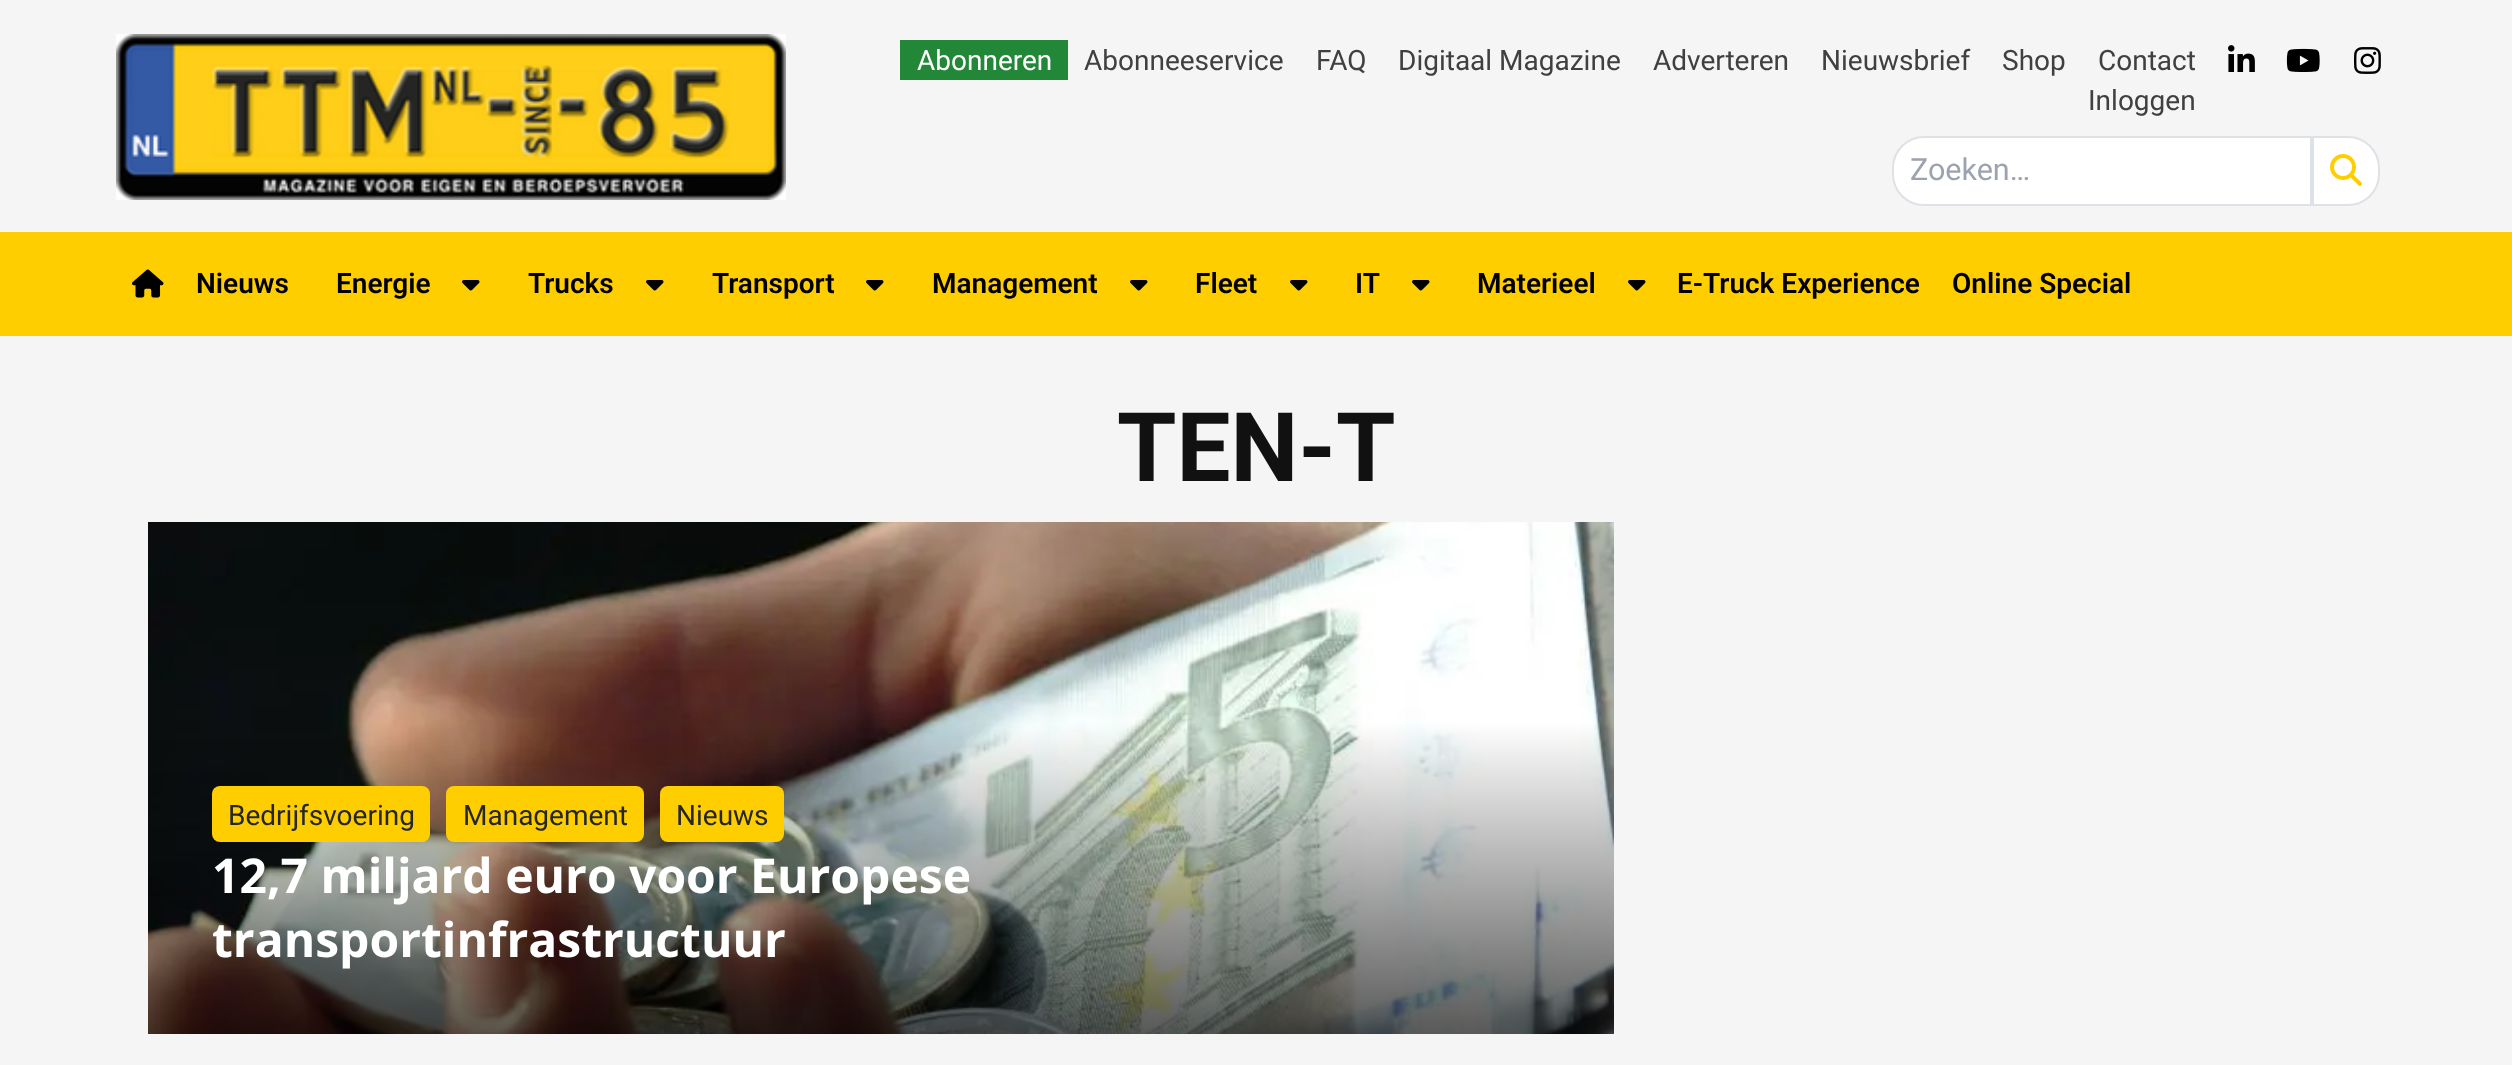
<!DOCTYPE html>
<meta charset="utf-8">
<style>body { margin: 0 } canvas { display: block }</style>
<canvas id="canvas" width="2512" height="1065"></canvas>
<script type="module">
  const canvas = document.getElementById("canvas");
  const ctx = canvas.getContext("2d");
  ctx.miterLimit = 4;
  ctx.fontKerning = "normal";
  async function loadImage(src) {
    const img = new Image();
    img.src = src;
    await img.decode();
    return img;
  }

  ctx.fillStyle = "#f5f5f5";
  ctx.fillRect(0, 0, 2512, 1065);
  ctx.drawImage(await loadImage("img1.png"), 116, 34, 670, 166);
  ctx.fillStyle = "#228736";
  ctx.fillRect(900, 40, 168, 40);
  ctx.font = "28px Roboto";
  ctx.fillStyle = "#ffffff";
  ctx.fillText("Abonneren", 917, 70);
  ctx.fillStyle = "#404040";
  ctx.fillText("Abonneeservice", 1084, 70);
  ctx.fillText("FAQ", 1316, 70);
  ctx.fillText("Digitaal Magazine", 1398, 70);
  ctx.fillText("Adverteren", 1653, 70);
  ctx.fillText("Nieuwsbrief", 1821, 70);
  ctx.fillText("Shop", 2002, 70);
  ctx.fillText("Contact", 2098, 70);
  ctx.fillText("Inloggen", 2088, 110);
  ctx.drawImage(await loadImage("img2.png"), 2228, 45, 27, 27);
  ctx.drawImage(await loadImage("img3.png"), 2286, 48, 34, 24);
  ctx.drawImage(await loadImage("img4.png"), 2354, 47, 27, 27);
  ctx.fillStyle = "#ffffff";
  ctx.beginPath();
  ctx.roundRect(1893, 137, 418, 68, [31, 0, 0, 31]);
  ctx.fill();
  ctx.strokeStyle = "#dee2e6";
  ctx.lineWidth = 2;
  ctx.stroke();
  ctx.font = "30.5px Roboto";
  ctx.fillStyle = "#9ca3af";
  ctx.fillText("Zoeken…", 1910, 180);
  ctx.fillStyle = "#ffffff";
  ctx.beginPath();
  ctx.roundRect(2313, 137, 66, 68, [0, 31, 31, 0]);
  ctx.fill();
  ctx.stroke();
  ctx.drawImage(await loadImage("img5.png"), 2330, 154, 32, 32);
  ctx.fillStyle = "#fece00";
  ctx.fillRect(0, 232, 2512, 104);
  ctx.drawImage(await loadImage("img6.png"), 132, 269, 32, 29);
  ctx.font = "600 28px Roboto";
  ctx.fillStyle = "#000000";
  ctx.fillText("Nieuws", 196, 293);
  ctx.fillText("Energie", 336, 293);
  ctx.drawImage(await loadImage("img7.png"), 462, 280, 18, 11);
  ctx.fillText("Trucks", 528, 293);
  ctx.drawImage(await loadImage("img7.png"), 646, 280, 18, 11);
  ctx.fillText("Transport", 712, 293);
  ctx.drawImage(await loadImage("img7.png"), 866, 280, 18, 11);
  ctx.fillText("Management", 932, 293);
  ctx.drawImage(await loadImage("img7.png"), 1130, 280, 18, 11);
  ctx.fillText("Fleet", 1195, 293);
  ctx.drawImage(await loadImage("img7.png"), 1290, 280, 18, 11);
  ctx.fillText("IT", 1355, 293);
  ctx.drawImage(await loadImage("img7.png"), 1412, 280, 18, 11);
  ctx.fillText("Materieel", 1477, 293);
  ctx.drawImage(await loadImage("img7.png"), 1628, 280, 18, 11);
  ctx.fillText("E-Truck Experience", 1677, 293);
  ctx.fillText("Online Special", 1952, 293);
  ctx.font = "bold 96px Roboto";
  ctx.fillStyle = "#111111";
  ctx.fillText("TEN-T", 1117, 481);
  ctx.drawImage(await loadImage("img8.png"), 148, 522, 1466, 512);
  ctx.fillStyle = "#fece00";
  ctx.beginPath();
  ctx.roundRect(212, 786, 218, 56, 8);
  ctx.fill();
  ctx.font = "28px Roboto";
  ctx.fillStyle = "#262626";
  ctx.fillText("Bedrijfsvoering", 228, 825);
  ctx.fillStyle = "#fece00";
  ctx.beginPath();
  ctx.roundRect(446, 786, 198, 56, 8);
  ctx.fill();
  ctx.fillStyle = "#262626";
  ctx.fillText("Management", 463, 825);
  ctx.fillStyle = "#fece00";
  ctx.beginPath();
  ctx.roundRect(660, 786, 124, 56, 8);
  ctx.fill();
  ctx.fillStyle = "#262626";
  ctx.fillText("Nieuws", 676, 825);
  ctx.font = "bold 48px Open Sans";
  ctx.fillStyle = "#ffffff";
  ctx.fillText("12,7 miljard euro voor Europese", 212, 893);
  ctx.fillText("transportinfrastructuur", 212, 957);
</script>
